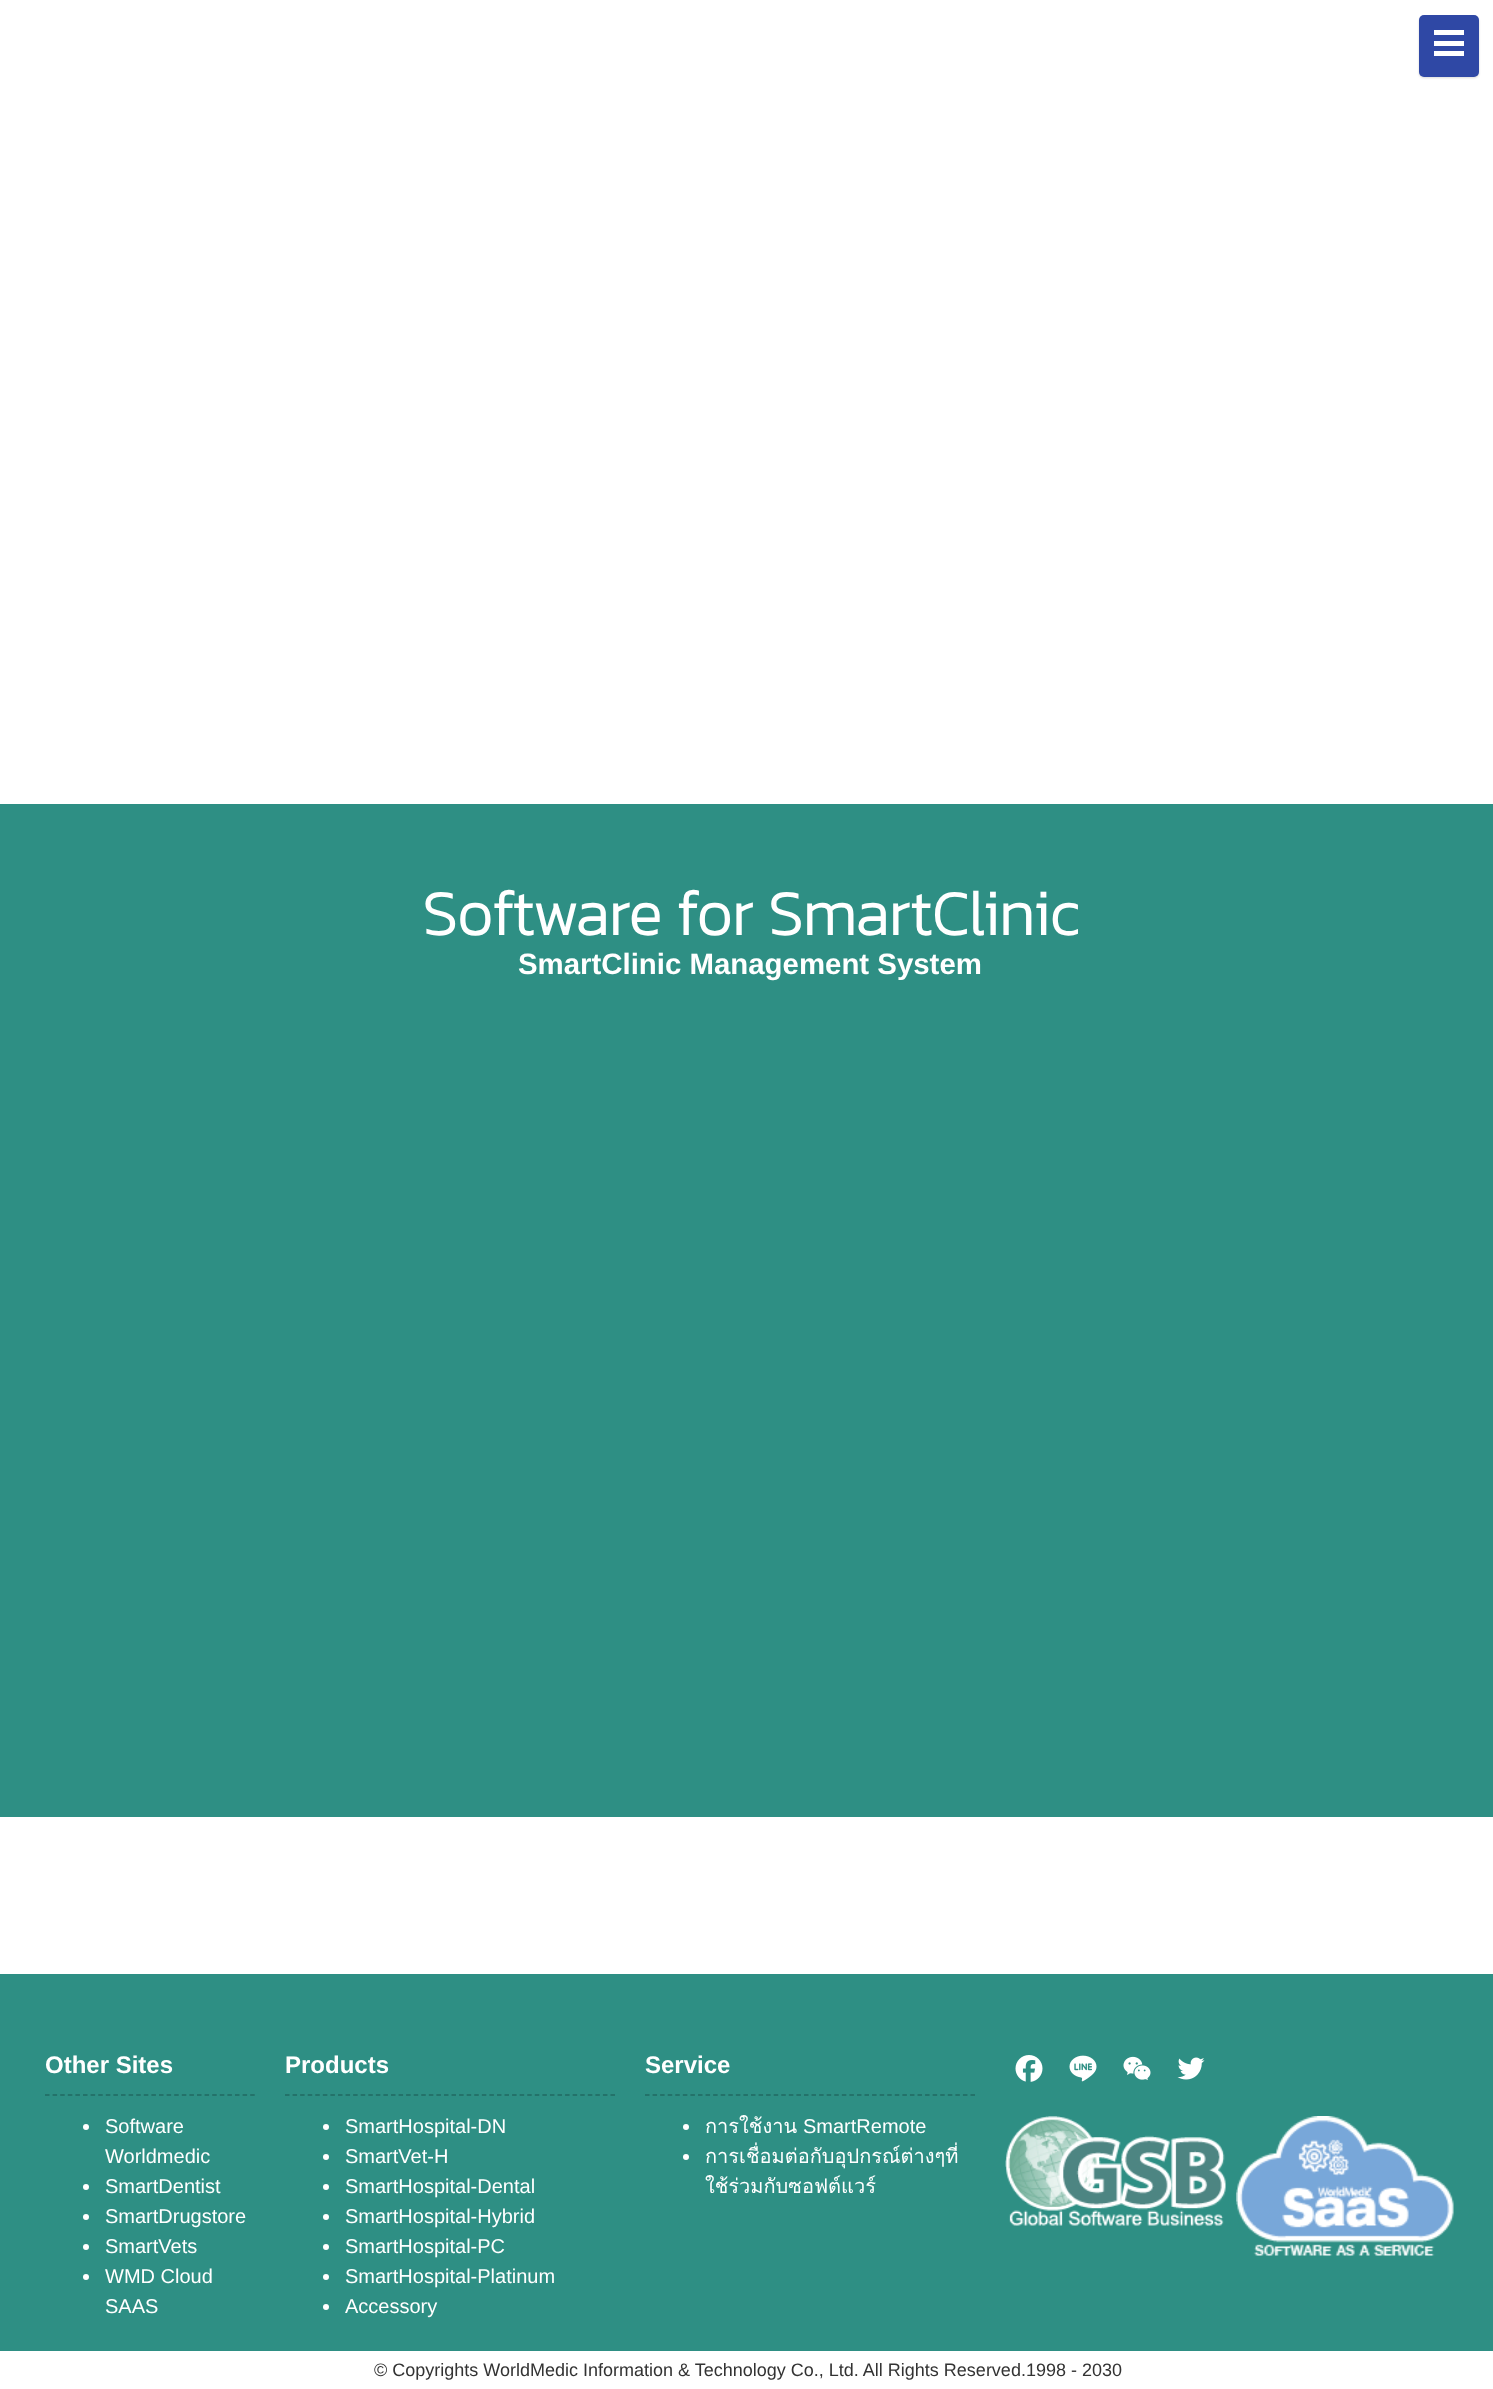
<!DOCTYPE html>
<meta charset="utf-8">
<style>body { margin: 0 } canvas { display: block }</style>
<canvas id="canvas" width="1493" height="2389"></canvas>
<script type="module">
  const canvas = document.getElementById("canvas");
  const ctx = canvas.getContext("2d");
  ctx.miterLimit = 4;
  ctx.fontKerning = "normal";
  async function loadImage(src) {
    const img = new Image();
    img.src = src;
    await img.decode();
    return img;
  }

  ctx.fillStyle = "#ffffff";
  ctx.fillRect(0, 0, 1493, 2389);
  ctx.fillStyle = "rgba(0, 0, 0, 0.15)";
  ctx.filter = "blur(1px)";
  ctx.beginPath();
  ctx.roundRect(1419, 17, 60, 61, 5);
  ctx.fill();
  ctx.filter = "none";
  ctx.fillStyle = "#2f48a5";
  ctx.beginPath();
  ctx.roundRect(1419, 15, 60, 62, 5);
  ctx.fill();
  ctx.fillStyle = "#ffffff";
  ctx.fillRect(1434, 30, 30, 5);
  ctx.fillRect(1434, 41, 30, 5);
  ctx.fillRect(1434, 51, 30, 5);
  ctx.fillStyle = "#2e8f84";
  ctx.fillRect(0, 804, 1493, 1013);
  ctx.font = "bold 63px Kanit";
  ctx.fillStyle = "#ffffff";
  ctx.fillText("Software for SmartClinic", 422, 935);
  ctx.font = "bold 29.4px Liberation Sans";
  ctx.fillText("SmartClinic Management System", 518, 974);
  ctx.fillStyle = "#2e8f84";
  ctx.fillRect(0, 1974, 1493, 377);
  ctx.beginPath();
  ctx.moveTo(45, 2095);
  ctx.lineTo(255, 2095);
  ctx.strokeStyle = "#226961";
  ctx.lineWidth = 1.5;
  ctx.setLineDash([4.5, 3.1]);
  ctx.stroke();
  ctx.font = "bold 24px Liberation Sans";
  ctx.fillStyle = "#ffffff";
  ctx.fillText("Other Sites", 45, 2073);
  ctx.beginPath();
  ctx.arc(86, 2127, 3, 0, Math.PI * 2);
  ctx.fill();
  ctx.font = "20px Liberation Sans";
  ctx.fillText("Software", 105, 2133);
  ctx.fillText("Worldmedic", 105, 2163);
  ctx.beginPath();
  ctx.arc(86, 2187, 3, 0, Math.PI * 2);
  ctx.fill();
  ctx.fillText("SmartDentist", 105, 2193);
  ctx.beginPath();
  ctx.arc(86, 2217, 3, 0, Math.PI * 2);
  ctx.fill();
  ctx.fillText("SmartDrugstore", 105, 2223);
  ctx.beginPath();
  ctx.arc(86, 2247, 3, 0, Math.PI * 2);
  ctx.fill();
  ctx.fillText("SmartVets", 105, 2253);
  ctx.beginPath();
  ctx.arc(86, 2277, 3, 0, Math.PI * 2);
  ctx.fill();
  ctx.fillText("WMD Cloud", 105, 2283);
  ctx.fillText("SAAS", 105, 2313);
  ctx.beginPath();
  ctx.moveTo(285, 2095);
  ctx.lineTo(615, 2095);
  ctx.setLineDash([4.5, 3.07]);
  ctx.stroke();
  ctx.font = "bold 24px Liberation Sans";
  ctx.fillText("Products", 285, 2073);
  ctx.beginPath();
  ctx.arc(326, 2127, 3, 0, Math.PI * 2);
  ctx.fill();
  ctx.font = "20px Liberation Sans";
  ctx.fillText("SmartHospital-DN", 345, 2133);
  ctx.beginPath();
  ctx.arc(326, 2157, 3, 0, Math.PI * 2);
  ctx.fill();
  ctx.fillText("SmartVet-H", 345, 2163);
  ctx.beginPath();
  ctx.arc(326, 2187, 3, 0, Math.PI * 2);
  ctx.fill();
  ctx.fillText("SmartHospital-Dental", 345, 2193);
  ctx.beginPath();
  ctx.arc(326, 2217, 3, 0, Math.PI * 2);
  ctx.fill();
  ctx.fillText("SmartHospital-Hybrid", 345, 2223);
  ctx.beginPath();
  ctx.arc(326, 2247, 3, 0, Math.PI * 2);
  ctx.fill();
  ctx.fillText("SmartHospital-PC", 345, 2253);
  ctx.beginPath();
  ctx.arc(326, 2277, 3, 0, Math.PI * 2);
  ctx.fill();
  ctx.fillText("SmartHospital-Platinum", 345, 2283);
  ctx.beginPath();
  ctx.arc(326, 2307, 3, 0, Math.PI * 2);
  ctx.fill();
  ctx.fillText("Accessory", 345, 2313);
  ctx.beginPath();
  ctx.moveTo(645, 2095);
  ctx.lineTo(975, 2095);
  ctx.stroke();
  ctx.font = "bold 24px Liberation Sans";
  ctx.fillText("Service", 645, 2073);
  ctx.beginPath();
  ctx.arc(686, 2127, 3, 0, Math.PI * 2);
  ctx.fill();
  ctx.font = "20px Loma";
  ctx.fillText("การใช้งาน", 705, 2133);
  ctx.font = "20px Liberation Sans";
  ctx.fillText("SmartRemote", 803, 2133);
  ctx.beginPath();
  ctx.arc(686, 2157, 3, 0, Math.PI * 2);
  ctx.fill();
  ctx.font = "20px Loma";
  ctx.fillText("การเชื่อมต่อกับอุปกรณ์ต่างๆที่", 705, 2163);
  ctx.fillText("ใช้ร่วมกับซอฟต์แวร์", 705, 2193);
  ctx.drawImage(await loadImage("img1.png"), 1015, 2055, 28, 27);
  ctx.drawImage(await loadImage("img2.png"), 1069, 2055, 28, 27);
  ctx.drawImage(await loadImage("img3.png"), 1123, 2056, 28, 24);
  ctx.drawImage(await loadImage("img4.png"), 1177, 2057, 28, 23);
  ctx.drawImage(await loadImage("img5.png"), 1005, 2116, 221, 110);
  ctx.drawImage(await loadImage("img6.png"), 1236, 2116, 218, 140);
  ctx.font = "18px Liberation Sans";
  ctx.fillStyle = "#333333";
  ctx.fillText("© Copyrights WorldMedic Information & Technology Co., Ltd. All Rights Reserved.1998 - 2030", 374, 2376);
</script>
